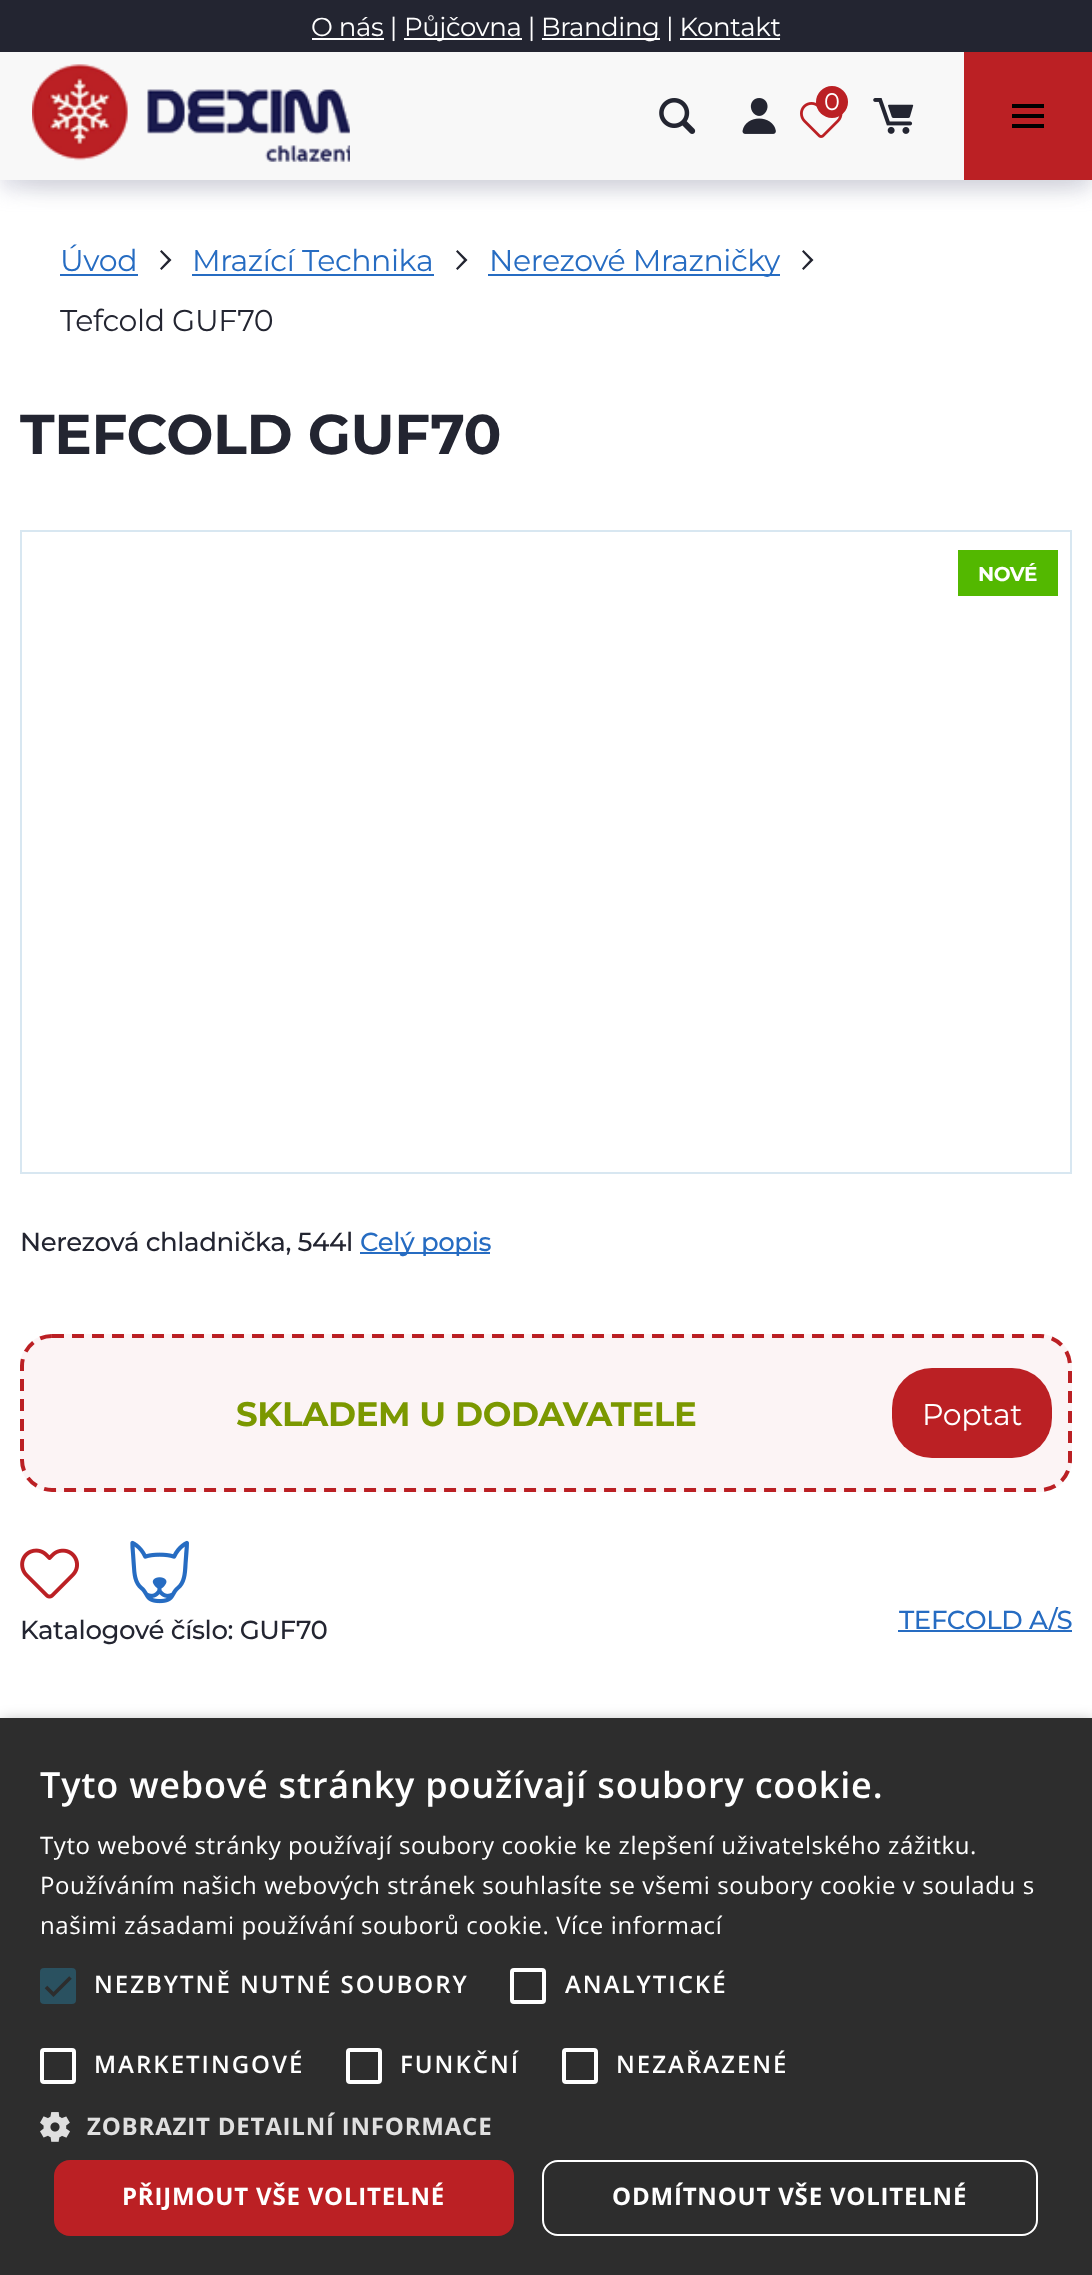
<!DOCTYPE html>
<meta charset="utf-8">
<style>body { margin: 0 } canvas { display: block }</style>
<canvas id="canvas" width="1092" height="2275"></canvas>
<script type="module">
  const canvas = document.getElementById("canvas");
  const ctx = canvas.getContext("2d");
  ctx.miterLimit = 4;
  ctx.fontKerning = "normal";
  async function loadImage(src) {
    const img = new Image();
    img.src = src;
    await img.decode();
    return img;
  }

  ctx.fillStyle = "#ffffff";
  ctx.fillRect(0, 0, 1092, 2275);
  ctx.fillStyle = "rgba(0, 0, 0, 0.1)";
  ctx.filter = "blur(12px)";
  ctx.beginPath();
  ctx.roundRect(6, 58, 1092, 128, 40);
  ctx.fill();
  ctx.filter = "none";
  ctx.fillStyle = "rgba(164, 167, 193, 0.34)";
  ctx.filter = "blur(10px)";
  ctx.beginPath();
  ctx.rect(0, -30, 1092, 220);
  ctx.fill();
  ctx.filter = "none";
  ctx.fillStyle = "#232531";
  ctx.fillRect(0, 0, 1092, 52);
  ctx.fillStyle = "#ffffff";
  ctx.fillRect(312, 38, 72, 2);
  ctx.letterSpacing = "-0.4px";
  ctx.font = "26px Montserrat";
  ctx.fillText("O nás |", 311, 36);
  ctx.fillRect(404, 38, 118, 2);
  ctx.fillText("Půjčovna |", 404, 36);
  ctx.fillRect(542, 38, 118, 2);
  ctx.fillText("Branding | Kontakt", 541, 36);
  ctx.fillRect(680, 38, 100, 2);
  ctx.fillStyle = "#f8f8f8";
  ctx.fillRect(0, 52, 964, 128);
  ctx.drawImage(await loadImage("img1.png"), 32, 64, 318, 98);
  ctx.fillStyle = "#bb2024";
  ctx.fillRect(964, 52, 128, 128);
  ctx.fillStyle = "#000000";
  ctx.fillRect(1012, 104, 32, 4);
  ctx.fillRect(1012, 114, 32, 4);
  ctx.fillRect(1012, 124, 32, 4);
  ctx.drawImage(await loadImage("img2.png"), 659, 98, 37, 36);
  ctx.drawImage(await loadImage("img3.png"), 742, 98, 34, 36);
  ctx.drawImage(await loadImage("img4.png"), 800, 102, 43, 36);
  ctx.fillStyle = "#bb2024";
  ctx.beginPath();
  ctx.arc(832, 102, 16, 0, Math.PI * 2);
  ctx.fill();
  ctx.font = "24px Montserrat";
  ctx.fillStyle = "#ffffff";
  ctx.fillText("0", 824, 110);
  ctx.drawImage(await loadImage("img5.png"), 873, 98, 41, 36);
  ctx.font = "30px Montserrat";
  ctx.fillStyle = "#266cc2";
  ctx.fillText("Úvod", 60, 271);
  ctx.fillRect(60, 274, 78, 2);
  ctx.fillStyle = "#232531";
  ctx.beginPath();
  ctx.moveTo(161.5, 250);
  ctx.lineTo(160, 251.5);
  ctx.lineTo(168, 260);
  ctx.lineTo(160, 268.5);
  ctx.lineTo(161.5, 270);
  ctx.lineTo(171.5, 260);
  ctx.closePath();
  ctx.fill();
  ctx.fillStyle = "#266cc2";
  ctx.fillText("Mrazící Technika", 192, 271);
  ctx.fillRect(192, 274, 242, 2);
  ctx.fillStyle = "#232531";
  ctx.beginPath();
  ctx.moveTo(457.5, 250);
  ctx.lineTo(456, 251.5);
  ctx.lineTo(464, 260);
  ctx.lineTo(456, 268.5);
  ctx.lineTo(457.5, 270);
  ctx.lineTo(467.5, 260);
  ctx.closePath();
  ctx.fill();
  ctx.fillStyle = "#266cc2";
  ctx.fillRect(488, 274, 292, 2);
  ctx.fillText("Nerezové Mrazničky", 489, 271);
  ctx.fillStyle = "#232531";
  ctx.beginPath();
  ctx.moveTo(803.5, 250);
  ctx.lineTo(802, 251.5);
  ctx.lineTo(810, 260);
  ctx.lineTo(802, 268.5);
  ctx.lineTo(803.5, 270);
  ctx.lineTo(813.5, 260);
  ctx.closePath();
  ctx.fill();
  ctx.fillText("Tefcold GUF70", 60, 331);
  ctx.font = "bold 56px Montserrat";
  ctx.fillText("TEFCOLD GUF70", 20, 454);
  ctx.strokeStyle = "#d8e7f1";
  ctx.lineWidth = 2;
  ctx.strokeRect(21, 531, 1050, 642);
  ctx.fillStyle = "#53b800";
  ctx.fillRect(958, 550, 100, 46);
  ctx.font = "bold 20px Montserrat";
  ctx.fillStyle = "#ffffff";
  ctx.fillText("NOVÉ", 978, 581);
  ctx.font = "500 26px Montserrat";
  ctx.fillStyle = "#232531";
  ctx.fillText("Nerezová chladnička, 544l", 20, 1251);
  ctx.fillStyle = "#266cc2";
  ctx.fillRect(360, 1252, 130, 2);
  ctx.fillText("Celý popis", 360, 1251);
  ctx.fillStyle = "#fcf4f5";
  ctx.beginPath();
  ctx.roundRect(20, 1334, 1052, 158, 32);
  ctx.fill();
  ctx.beginPath();
  ctx.moveTo(52, 1336);
  ctx.lineTo(1040, 1336);
  ctx.bezierCurveTo(1056.5, 1336, 1070, 1349.5, 1070, 1366);
  ctx.lineTo(1070, 1460);
  ctx.bezierCurveTo(1070, 1476.5, 1056.5, 1490, 1040, 1490);
  ctx.lineTo(52, 1490);
  ctx.bezierCurveTo(35.5, 1490, 22, 1476.5, 22, 1460);
  ctx.lineTo(22, 1366);
  ctx.bezierCurveTo(22, 1349.5, 35.5, 1336, 52, 1336);
  ctx.closePath();
  ctx.strokeStyle = "#bb2024";
  ctx.lineWidth = 4;
  ctx.setLineDash([12, 8]);
  ctx.stroke();
  ctx.font = "bold 34px Montserrat";
  ctx.fillStyle = "#7b9800";
  ctx.fillText("SKLADEM U DODAVATELE", 236, 1426);
  ctx.fillStyle = "#bb2024";
  ctx.beginPath();
  ctx.roundRect(892, 1368, 160, 90, 40);
  ctx.fill();
  ctx.font = "30px Montserrat";
  ctx.fillStyle = "#ffffff";
  ctx.fillText("Poptat", 922, 1425);
  ctx.drawImage(await loadImage("img6.png"), 20, 1548, 59, 51);
  ctx.drawImage(await loadImage("img7.png"), 130, 1540, 59, 64);
  ctx.font = "500 26px Montserrat";
  ctx.fillStyle = "#232531";
  ctx.fillText("Katalogové číslo: GUF70", 20, 1639);
  ctx.fillStyle = "#266cc2";
  ctx.fillRect(898, 1630, 174, 2);
  ctx.fillText("TEFCOLD A/S", 899, 1629);
  ctx.fillStyle = "rgba(0, 0, 0, 0.35)";
  ctx.filter = "blur(8px)";
  ctx.beginPath();
  ctx.rect(2, 1722, 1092, 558);
  ctx.fill();
  ctx.filter = "none";
  ctx.fillStyle = "#2d2d2d";
  ctx.fillRect(0, 1718, 1092, 557);
  ctx.letterSpacing = "0.8px";
  ctx.font = "600 36px Open Sans";
  ctx.fillStyle = "#ffffff";
  ctx.fillText("Tyto webové stránky používají soubory cookie.", 40, 1798);
  ctx.letterSpacing = "0.6px";
  ctx.font = "24px Open Sans";
  ctx.fillText("Tyto webové stránky používají soubory cookie ke zlepšení uživatelského zážitku.", 40, 1854);
  ctx.fillText("Používáním našich webových stránek souhlasíte se všemi soubory cookie v souladu s", 40, 1894);
  ctx.fillText("našimi zásadami používání souborů cookie. Více informací", 40, 1934);
  ctx.fillStyle = "#2a5160";
  ctx.beginPath();
  ctx.roundRect(40, 1968, 36, 36, 4);
  ctx.fill();
  ctx.beginPath();
  ctx.moveTo(46, 1987);
  ctx.lineTo(53.5, 1994.5);
  ctx.lineTo(70.5, 1977.5);
  ctx.strokeStyle = "#2d2d2d";
  ctx.lineWidth = 3.6;
  ctx.setLineDash([]);
  ctx.stroke();
  ctx.letterSpacing = "2px";
  ctx.font = "600 24px Open Sans";
  ctx.fillStyle = "#ffffff";
  ctx.fillText("NEZBYTNĚ NUTNÉ SOUBORY", 94, 1993);
  ctx.beginPath();
  ctx.roundRect(512, 1970, 32, 32, 2);
  ctx.strokeStyle = "#ffffff";
  ctx.lineWidth = 4;
  ctx.stroke();
  ctx.fillText("ANALYTICKÉ", 565, 1993);
  ctx.beginPath();
  ctx.roundRect(42, 2050, 32, 32, 2);
  ctx.stroke();
  ctx.fillText("MARKETINGOVÉ", 94, 2073);
  ctx.beginPath();
  ctx.roundRect(348, 2050, 32, 32, 2);
  ctx.stroke();
  ctx.fillText("FUNKČNÍ", 400, 2073);
  ctx.beginPath();
  ctx.roundRect(564, 2050, 32, 32, 2);
  ctx.stroke();
  ctx.fillText("NEZAŘAZENÉ", 616, 2073);
  ctx.drawImage(await loadImage("img8.png"), 40, 2112, 30, 30);
  ctx.letterSpacing = "0.8px";
  ctx.font = "bold 24px Open Sans";
  ctx.fillStyle = "#e0e0e0";
  ctx.fillText("ZOBRAZIT DETAILNÍ INFORMACE", 87, 2135);
  ctx.fillStyle = "#bb2024";
  ctx.beginPath();
  ctx.roundRect(54, 2160, 460, 76, 16);
  ctx.fill();
  ctx.fillStyle = "#ffffff";
  ctx.fillText("PŘIJMOUT VŠE VOLITELNÉ", 122, 2205);
  ctx.beginPath();
  ctx.roundRect(543, 2161, 494, 74, 15);
  ctx.lineWidth = 2;
  ctx.stroke();
  ctx.fillText("ODMÍTNOUT VŠE VOLITELNÉ", 612, 2205);
</script>
